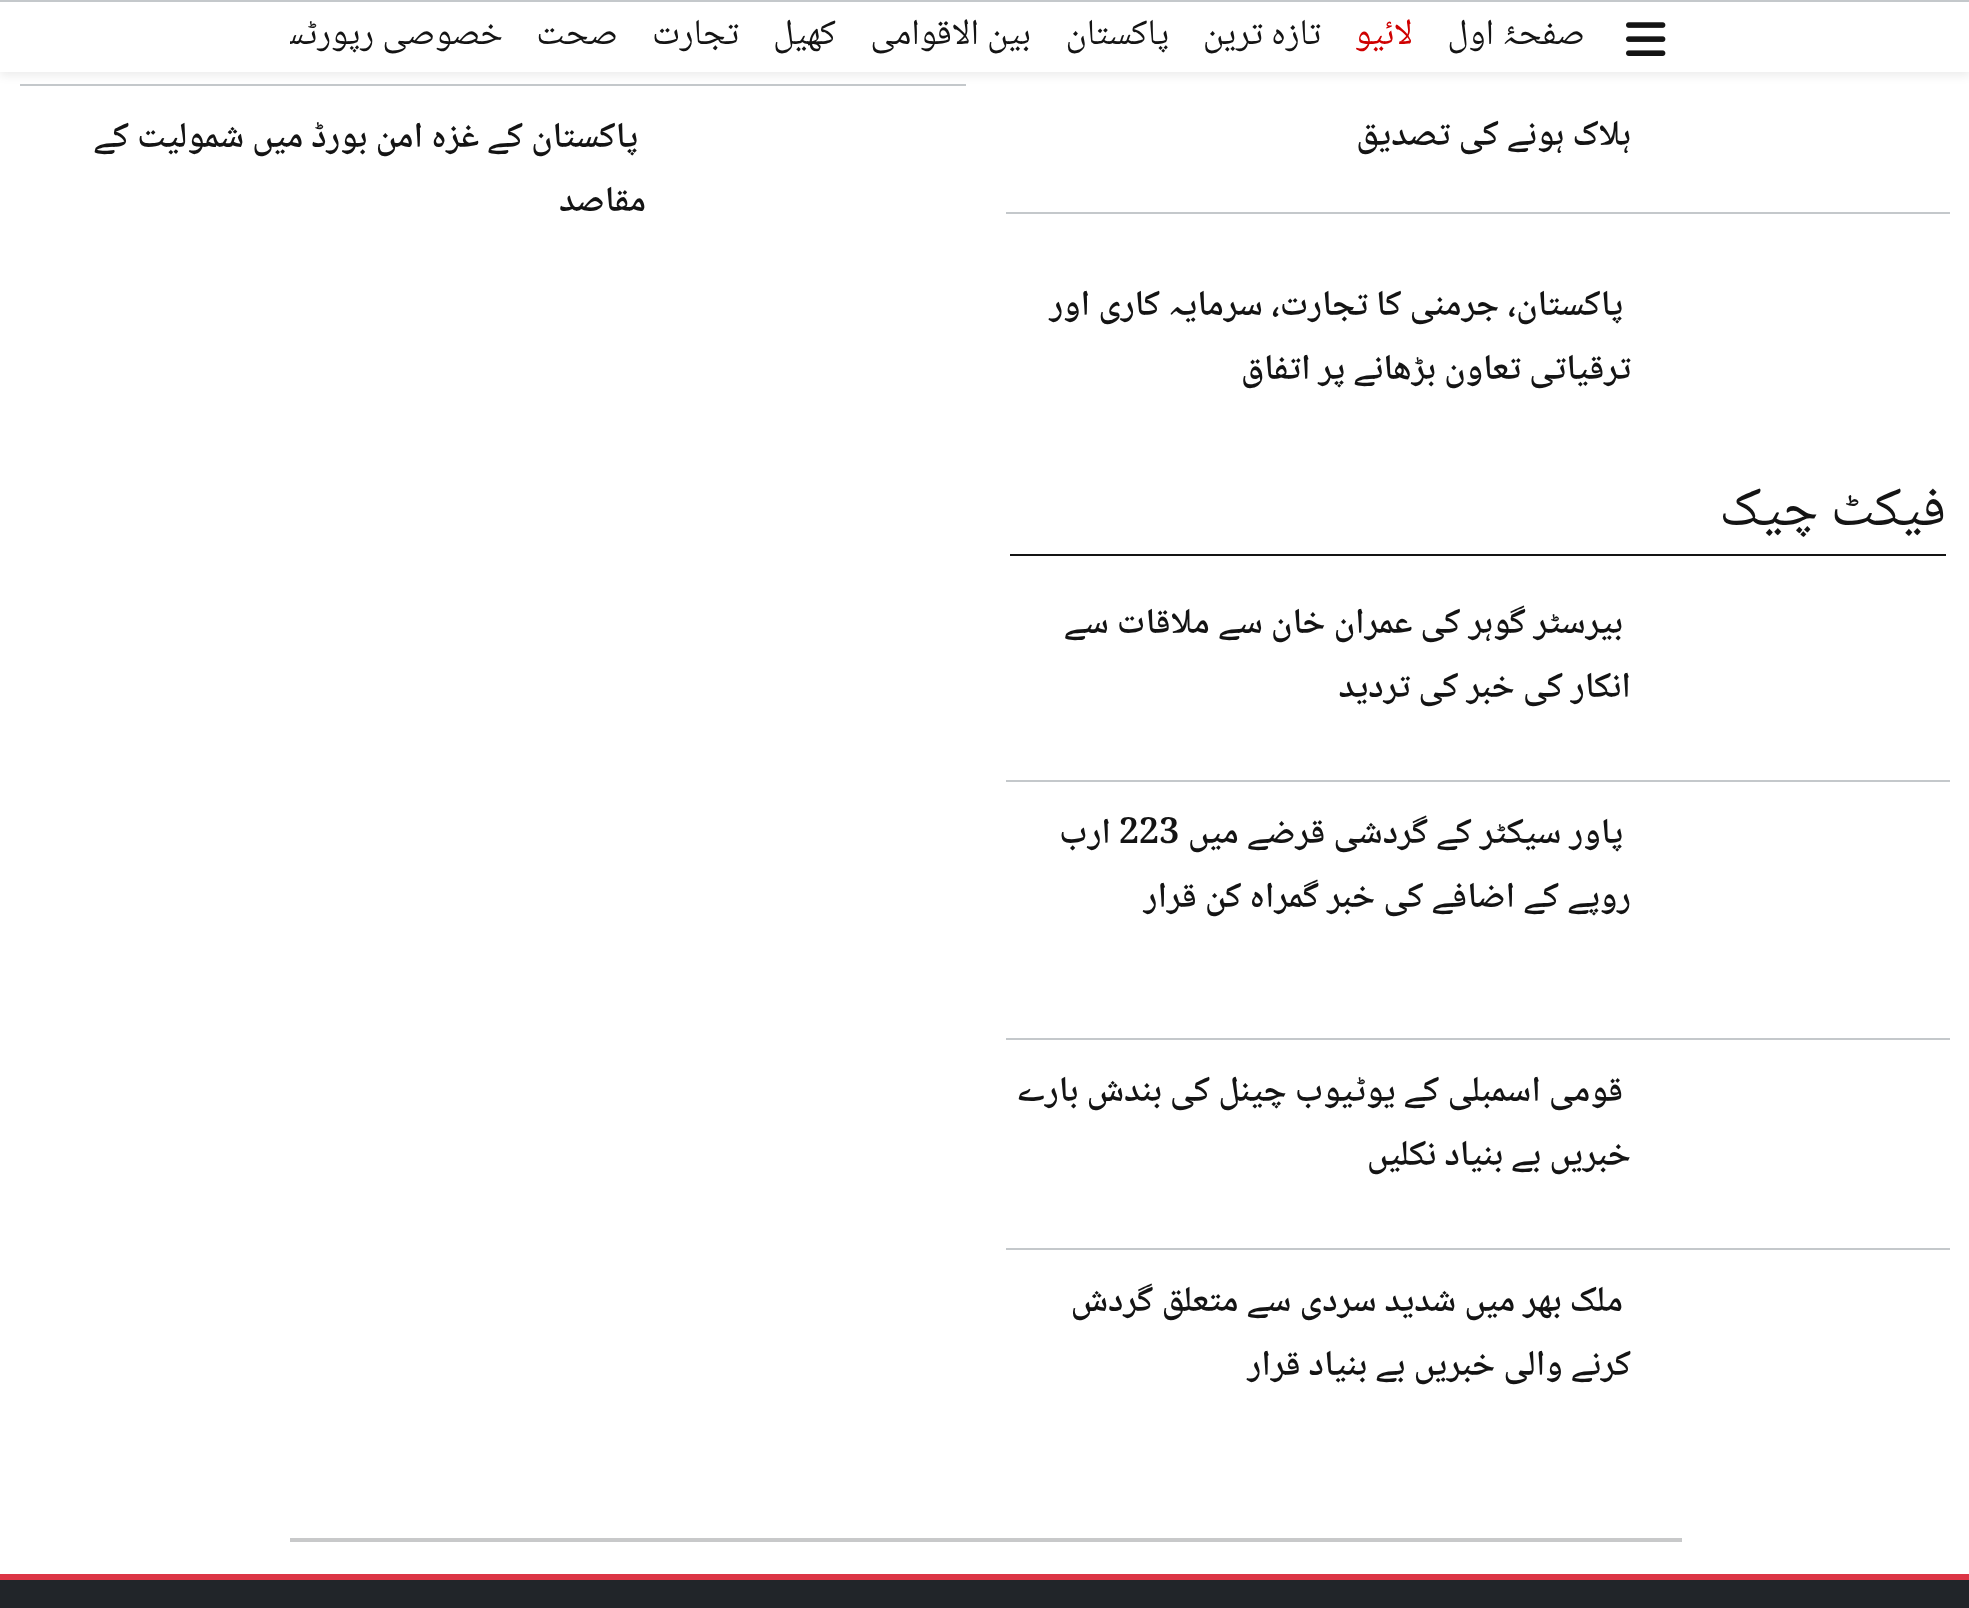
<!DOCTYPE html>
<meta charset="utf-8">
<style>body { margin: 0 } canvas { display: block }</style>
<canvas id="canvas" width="1969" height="1608"></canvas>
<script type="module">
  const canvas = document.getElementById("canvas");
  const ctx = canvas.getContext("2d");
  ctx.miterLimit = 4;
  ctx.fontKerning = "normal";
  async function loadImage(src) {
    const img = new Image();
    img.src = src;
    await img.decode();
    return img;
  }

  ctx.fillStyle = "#ffffff";
  ctx.fillRect(0, 0, 1969, 1608);
  ctx.fillStyle = "#c4c8cb";
  ctx.fillRect(20, 84, 946, 2);
  ctx.fillStyle = "rgba(0, 0, 0, 0.07)";
  ctx.filter = "blur(4px)";
  ctx.beginPath();
  ctx.rect(0, 4, 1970, 72);
  ctx.fill();
  ctx.filter = "none";
  ctx.fillStyle = "#ffffff";
  ctx.fillRect(0, 2, 1969, 70);
  ctx.fillStyle = "#c4c8cb";
  ctx.fillRect(0, 0, 1969, 2);
  ctx.drawImage(await loadImage("img1.png"), 1626, 22, 40, 34);
  ctx.direction = "rtl";
  ctx.font = "36px Noto Naskh Arabic";
  ctx.fillStyle = "#141414";
  ctx.fillText("صفحۂ اول", 1585, 44);
  ctx.fillStyle = "#cf0000";
  ctx.fillText("لائیو", 1413, 44);
  ctx.fillStyle = "#141414";
  ctx.fillText("تازہ ترین", 1321, 44);
  ctx.fillText("پاکستان", 1169, 44);
  ctx.fillText("بین الاقوامی", 1031, 44);
  ctx.fillText("کھیل", 836, 44);
  ctx.fillText("تجارت", 739, 44);
  ctx.fillText("صحت", 618, 44);
  ctx.save();
  ctx.beginPath();
  ctx.rect(290, 2, 1392, 70);
  ctx.clip();
  ctx.fillText("خصوصی رپورٹس", 503, 44);
  ctx.restore();
  ctx.fillStyle = "#c4c8cb";
  ctx.fillRect(1006, 212, 944, 2);
  ctx.font = "600 36px Noto Naskh Arabic";
  ctx.fillStyle = "#141414";
  ctx.fillText("ہلاک ہونے کی تصدیق", 1631, 145);
  ctx.fillText("پاکستان، جرمنی کا تجارت، سرمایہ کاری اور", 1623, 315);
  ctx.fillText("ترقیاتی تعاون بڑھانے پر اتفاق", 1631, 379);
  ctx.fillText("پاکستان کے غزہ امن بورڈ میں شمولیت کے", 638, 147);
  ctx.fillText("مقاصد", 646, 211);
  ctx.fillRect(1010, 554, 936, 2);
  ctx.font = "56px Noto Naskh Arabic";
  ctx.fillText("فیکٹ چیک", 1946, 525);
  ctx.fillStyle = "#c4c8cb";
  ctx.fillRect(1006, 780, 944, 2);
  ctx.font = "600 36px Noto Naskh Arabic";
  ctx.fillStyle = "#141414";
  ctx.fillText("بیرسٹر گوہر کی عمران خان سے ملاقات سے", 1623, 633);
  ctx.fillText("انکار کی خبر کی تردید", 1631, 697);
  ctx.fillStyle = "#c4c8cb";
  ctx.fillRect(1006, 1038, 944, 2);
  ctx.fillStyle = "#141414";
  ctx.fillText("پاور سیکٹر کے گردشی قرضے میں", 1623, 843);
  ctx.direction = "ltr";
  ctx.fillText("223", 1119, 843);
  ctx.direction = "rtl";
  ctx.fillText("ارب", 1111, 843);
  ctx.fillText("روپے کے اضافے کی خبر گمراہ کن قرار", 1631, 907);
  ctx.fillStyle = "#c4c8cb";
  ctx.fillRect(1006, 1248, 944, 2);
  ctx.fillStyle = "#141414";
  ctx.fillText("قومی اسمبلی کے یوٹیوب چینل کی بندش بارے", 1623, 1101);
  ctx.fillText("خبریں بے بنیاد نکلیں", 1631, 1165);
  ctx.fillText("ملک بھر میں شدید سردی سے متعلق گردش", 1623, 1311);
  ctx.fillText("کرنے والی خبریں بے بنیاد قرار", 1631, 1375);
  ctx.fillStyle = "#c8c9ca";
  ctx.fillRect(290, 1538, 1392, 4);
  ctx.fillStyle = "#212529";
  ctx.fillRect(0, 1580, 1969, 28);
  ctx.fillStyle = "#dc3545";
  ctx.fillRect(0, 1574, 1969, 6);
</script>
